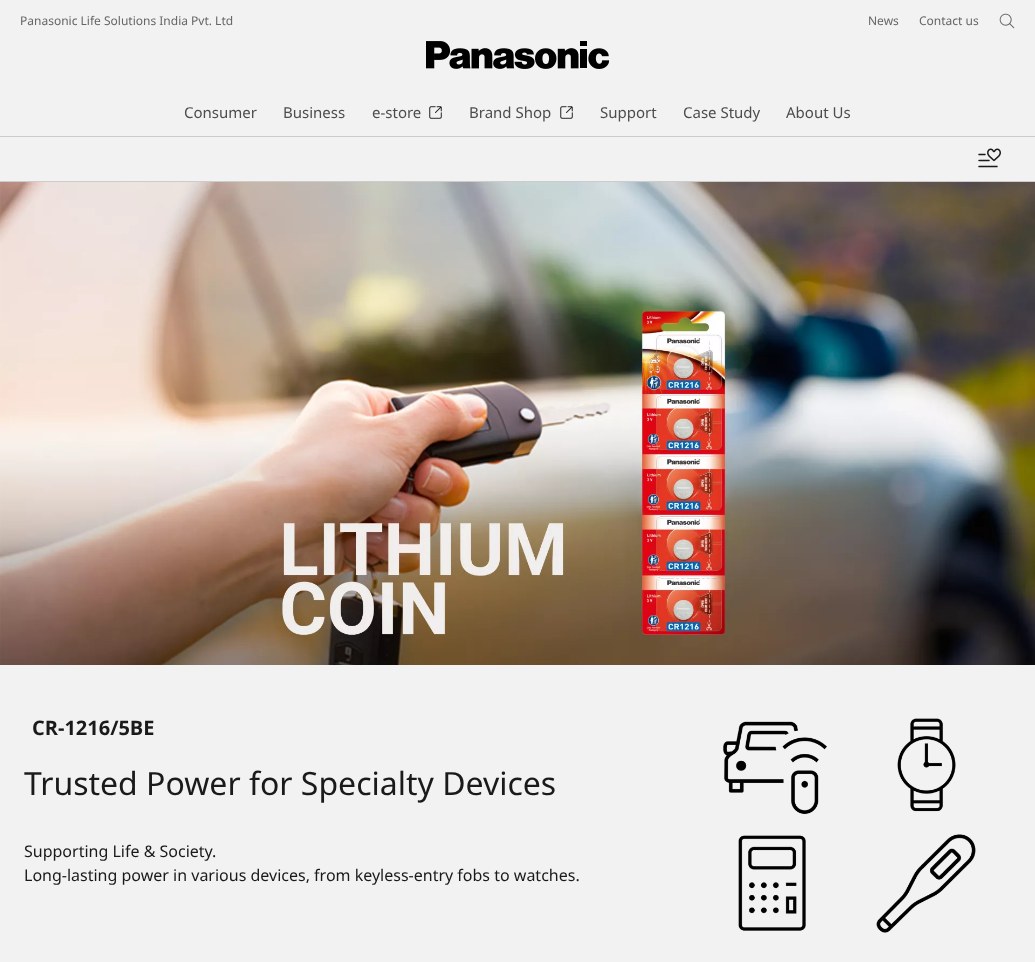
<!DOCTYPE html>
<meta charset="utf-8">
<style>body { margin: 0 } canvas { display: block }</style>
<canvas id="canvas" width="1035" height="962"></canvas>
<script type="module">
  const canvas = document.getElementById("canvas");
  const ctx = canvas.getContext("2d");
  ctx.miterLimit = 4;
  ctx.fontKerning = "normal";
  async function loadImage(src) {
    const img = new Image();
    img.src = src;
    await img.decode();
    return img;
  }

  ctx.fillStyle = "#f2f2f2";
  ctx.fillRect(0, 0, 1035, 962);
  ctx.font = "12px Noto Sans";
  ctx.fillStyle = "#666666";
  ctx.fillText("Panasonic Life Solutions India Pvt. Ltd", 20, 25);
  ctx.fillText("News", 868, 25);
  ctx.fillText("Contact us", 919, 25);
  ctx.drawImage(await loadImage("img1.png"), 999, 13, 16, 16);
  ctx.drawImage(await loadImage("img2.png"), 426, 41, 183, 28);
  ctx.font = "15px Noto Sans";
  ctx.fillStyle = "#4d4d4d";
  ctx.fillText("Consumer", 184, 118);
  ctx.fillText("Business", 283, 118);
  ctx.fillText("e-store", 372, 118);
  ctx.drawImage(await loadImage("img3.png"), 429, 106, 13, 13);
  ctx.fillText("Brand Shop", 469, 118);
  ctx.drawImage(await loadImage("img3.png"), 560, 106, 13, 13);
  ctx.fillText("Support", 600, 118);
  ctx.fillText("Case Study", 683, 118);
  ctx.fillText("About Us", 786, 118);
  ctx.fillStyle = "#cccccc";
  ctx.fillRect(0, 136, 1035, 1);
  ctx.fillRect(0, 181, 1035, 1);
  ctx.drawImage(await loadImage("img4.png"), 978, 148, 23, 20);
  ctx.drawImage(await loadImage("img5.png"), 0, 182, 1035, 483);
  ctx.font = "bold 20px Noto Sans";
  ctx.fillStyle = "#1a1a1a";
  ctx.fillText("CR-1216/5BE", 32, 735);
  ctx.font = "32px Noto Sans";
  ctx.fillText("Trusted Power for Specialty Devices", 24, 795);
  ctx.font = "16px Noto Sans";
  ctx.fillText("Supporting Life & Society.", 24, 857);
  ctx.fillText("Long-lasting power in various devices, from keyless-entry fobs to watches.", 24, 881);
  ctx.drawImage(await loadImage("img6.png"), 723, 721, 104, 94);
  ctx.drawImage(await loadImage("img7.png"), 897, 718, 59, 94);
  ctx.drawImage(await loadImage("img8.png"), 738, 835, 68, 96);
  ctx.drawImage(await loadImage("img9.png"), 876, 834, 100, 99);
</script>
